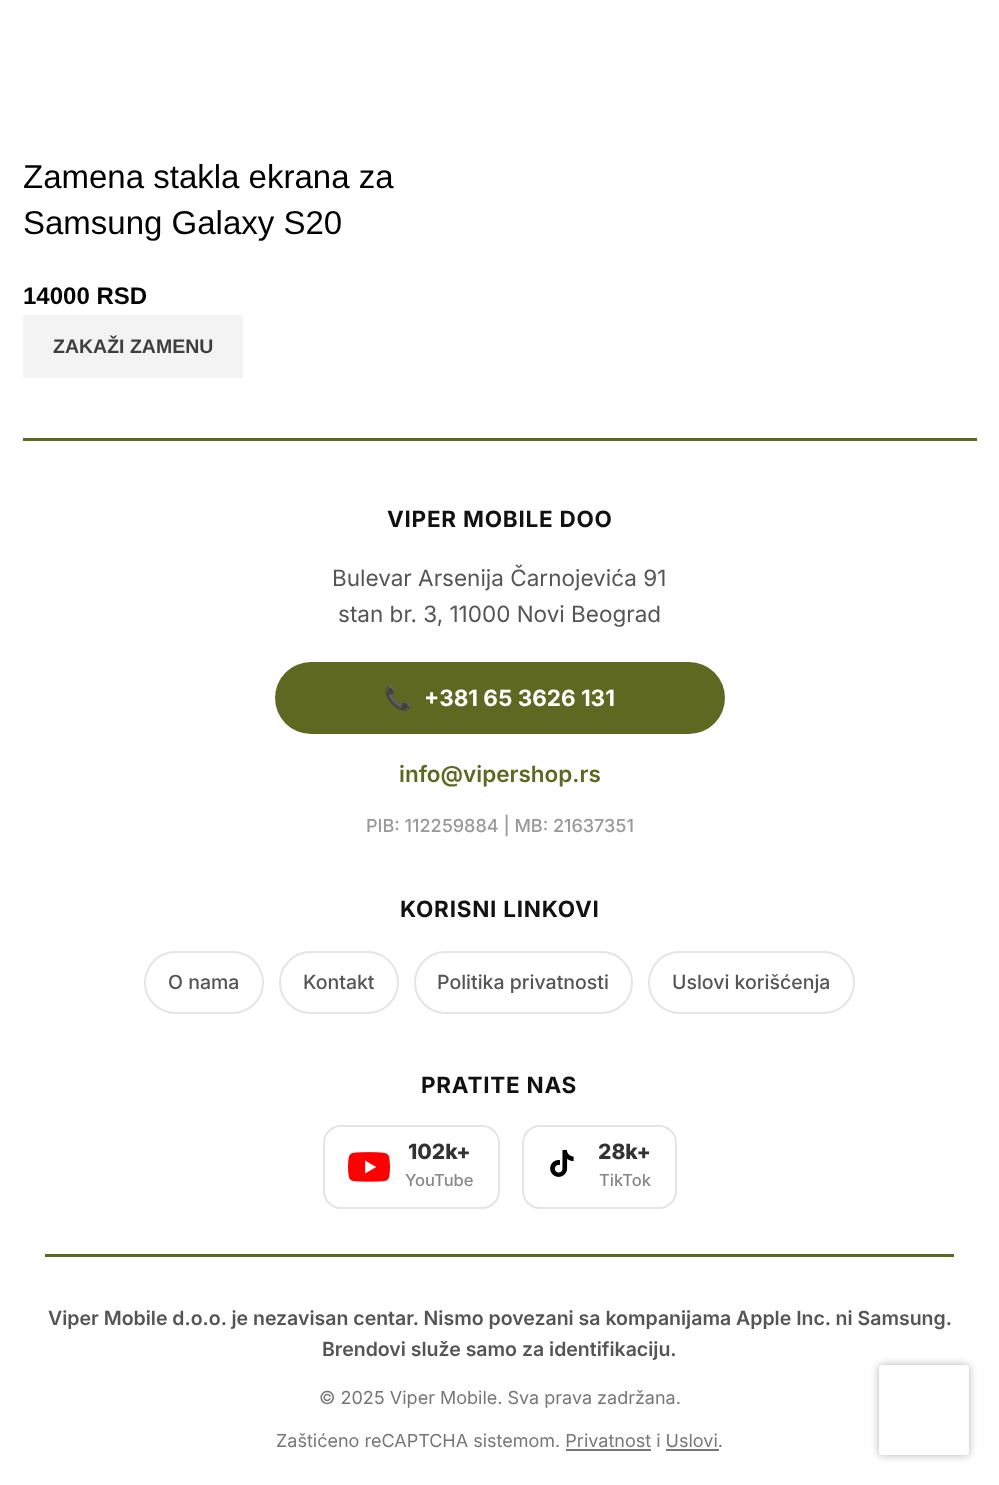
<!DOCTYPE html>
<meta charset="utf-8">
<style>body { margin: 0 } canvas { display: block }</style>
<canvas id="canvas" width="999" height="1485"></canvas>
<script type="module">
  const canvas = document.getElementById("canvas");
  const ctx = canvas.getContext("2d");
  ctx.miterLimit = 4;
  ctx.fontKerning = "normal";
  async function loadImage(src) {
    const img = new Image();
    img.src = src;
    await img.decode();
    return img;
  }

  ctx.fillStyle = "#ffffff";
  ctx.fillRect(0, 0, 999, 1485);
  ctx.font = "33px Liberation Sans";
  ctx.fillStyle = "#000000";
  ctx.fillText("Zamena stakla ekrana za", 23, 188);
  ctx.fillText("Samsung Galaxy S20", 23, 234);
  ctx.font = "bold 24px Liberation Sans";
  ctx.fillText("14000 RSD", 23, 304);
  ctx.fillStyle = "#f3f3f3";
  ctx.fillRect(23, 315, 220, 63);
  ctx.font = "bold 19.5px Liberation Sans";
  ctx.fillStyle = "#3e3e3e";
  ctx.fillText("ZAKAŽI ZAMENU", 53, 353);
  ctx.fillStyle = "#5e6821";
  ctx.fillRect(23, 438, 954, 3);
  ctx.letterSpacing = "0.75px";
  ctx.font = "bold 22.5px Inter";
  ctx.fillStyle = "#111111";
  ctx.fillText("VIPER MOBILE DOO", 387, 527);
  ctx.letterSpacing = "0px";
  ctx.font = "22.5px Inter";
  ctx.fillStyle = "#555555";
  ctx.fillText("Bulevar Arsenija Čarnojevića 91", 332, 586);
  ctx.fillText("stan br. 3, 11000 Novi Beograd", 338, 622);
  ctx.fillStyle = "#5e6821";
  ctx.beginPath();
  ctx.roundRect(275, 662, 450, 72, 36);
  ctx.fill();
  ctx.font = "bold 22.5px Noto Color Emoji";
  ctx.fillStyle = "#ffffff";
  ctx.fillText("📞", 384, 706);
  ctx.font = "bold 22.5px Inter";
  ctx.fillText("+381 65 3626 131", 424, 706);
  ctx.font = "600 22.5px Inter";
  ctx.fillStyle = "#5e6821";
  ctx.fillText("info@vipershop.rs", 399, 782);
  ctx.font = "500 18px Inter";
  ctx.fillStyle = "#999999";
  ctx.fillText("PIB: 112259884 | MB: 21637351", 366, 832);
  ctx.letterSpacing = "0.75px";
  ctx.font = "bold 22.5px Inter";
  ctx.fillStyle = "#111111";
  ctx.fillText("KORISNI LINKOVI", 400, 917);
  ctx.beginPath();
  ctx.roundRect(145, 952, 118, 61, 30.5);
  ctx.strokeStyle = "#e5e5e5";
  ctx.lineWidth = 2;
  ctx.stroke();
  ctx.letterSpacing = "0px";
  ctx.font = "500 19.5px Inter";
  ctx.fillStyle = "#555555";
  ctx.fillText("O nama", 168, 989);
  ctx.beginPath();
  ctx.roundRect(280, 952, 118, 61, 30.5);
  ctx.stroke();
  ctx.fillText("Kontakt", 303, 989);
  ctx.beginPath();
  ctx.roundRect(415, 952, 217, 61, 30.5);
  ctx.stroke();
  ctx.fillText("Politika privatnosti", 437, 989);
  ctx.beginPath();
  ctx.roundRect(649, 952, 205, 61, 30.5);
  ctx.stroke();
  ctx.fillText("Uslovi korišćenja", 672, 989);
  ctx.letterSpacing = "0.75px";
  ctx.font = "bold 22.5px Inter";
  ctx.fillStyle = "#111111";
  ctx.fillText("PRATITE NAS", 421, 1093);
  ctx.beginPath();
  ctx.roundRect(324, 1126, 175, 82, 17);
  ctx.stroke();
  ctx.drawImage(await loadImage("img1.png"), 348, 1152, 42, 30);
  ctx.letterSpacing = "0px";
  ctx.font = "800 21px Inter";
  ctx.fillStyle = "#333333";
  ctx.fillText("102k+", 408, 1159);
  ctx.font = "500 16.5px Inter";
  ctx.fillStyle = "#888888";
  ctx.fillText("YouTube", 405, 1186);
  ctx.beginPath();
  ctx.roundRect(523, 1126, 153, 82, 17);
  ctx.stroke();
  ctx.drawImage(await loadImage("img2.png"), 550, 1149, 24, 28);
  ctx.font = "800 21px Inter";
  ctx.fillStyle = "#333333";
  ctx.fillText("28k+", 598, 1159);
  ctx.font = "500 16.5px Inter";
  ctx.fillStyle = "#888888";
  ctx.fillText("TikTok", 599, 1186);
  ctx.fillStyle = "#5e6821";
  ctx.fillRect(45, 1254, 909, 3);
  ctx.font = "600 19.5px Inter";
  ctx.fillStyle = "#555555";
  ctx.fillText("Viper Mobile d.o.o. je nezavisan centar. Nismo povezani sa kompanijama Apple Inc. ni Samsung.", 48, 1325);
  ctx.fillText("Brendovi služe samo za identifikaciju.", 322, 1356);
  ctx.font = "18px Inter";
  ctx.fillStyle = "#777777";
  ctx.fillText("© 2025 Viper Mobile. Sva prava zadržana.", 319, 1404);
  ctx.fillText("Zaštićeno reCAPTCHA sistemom. Privatnost i Uslovi.", 276, 1447);
  ctx.fillRect(566, 1449, 85, 2);
  ctx.fillRect(666, 1449, 53, 2);
  ctx.save();
  ctx.beginPath();
  ctx.moveTo(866, 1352);
  ctx.lineTo(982, 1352);
  ctx.lineTo(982, 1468);
  ctx.lineTo(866, 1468);
  ctx.closePath();
  ctx.moveTo(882, 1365);
  ctx.lineTo(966, 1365);
  ctx.bezierCurveTo(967.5, 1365, 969, 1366.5, 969, 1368);
  ctx.lineTo(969, 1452);
  ctx.bezierCurveTo(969, 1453.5, 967.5, 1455, 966, 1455);
  ctx.lineTo(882, 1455);
  ctx.bezierCurveTo(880.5, 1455, 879, 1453.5, 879, 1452);
  ctx.lineTo(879, 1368);
  ctx.bezierCurveTo(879, 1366.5, 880.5, 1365, 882, 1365);
  ctx.closePath();
  ctx.clip("evenodd");
  ctx.fillStyle = "#b3b3b3";
  ctx.filter = "blur(4px)";
  ctx.beginPath();
  ctx.roundRect(879, 1365, 90, 90, 3);
  ctx.fill();
  ctx.filter = "none";
  ctx.restore();
</script>
